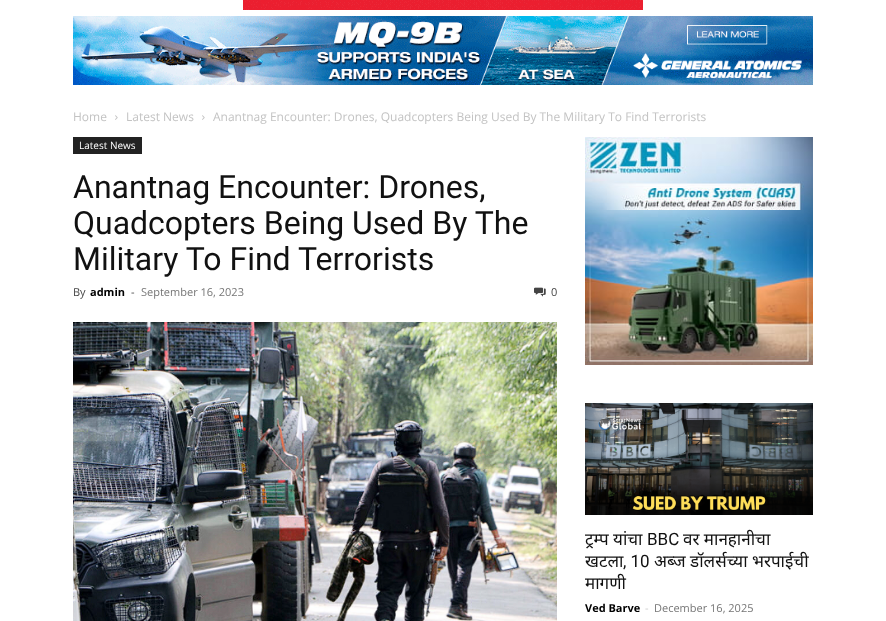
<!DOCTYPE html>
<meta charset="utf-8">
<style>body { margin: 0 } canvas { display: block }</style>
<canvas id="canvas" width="886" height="621"></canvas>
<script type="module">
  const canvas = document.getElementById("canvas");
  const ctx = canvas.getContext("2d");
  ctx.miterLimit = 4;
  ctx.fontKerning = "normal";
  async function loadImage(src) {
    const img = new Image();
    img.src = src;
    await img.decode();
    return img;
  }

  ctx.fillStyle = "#ffffff";
  ctx.fillRect(0, 0, 886, 621);
  ctx.drawImage(await loadImage("img1.png"), 243, 0, 400, 10);
  ctx.drawImage(await loadImage("img2.png"), 73, 16, 740, 69);
  ctx.font = "12px Open Sans";
  ctx.fillStyle = "#c3c3c3";
  ctx.fillText("Home", 73, 121);
  ctx.drawImage(await loadImage("img3.png"), 115, 115, 3, 5);
  ctx.fillText("Latest News", 126, 121);
  ctx.drawImage(await loadImage("img3.png"), 202, 115, 3, 5);
  ctx.fillText("Anantnag Encounter: Drones, Quadcopters Being Used By The Military To Find Terrorists", 213, 121);
  ctx.fillStyle = "#222222";
  ctx.fillRect(73, 137, 69, 17);
  ctx.font = "10px Open Sans";
  ctx.fillStyle = "#ffffff";
  ctx.fillText("Latest News", 79, 149);
  ctx.font = "32px Roboto";
  ctx.fillStyle = "#111111";
  ctx.fillText("Anantnag Encounter: Drones,", 73, 198);
  ctx.fillText("Quadcopters Being Used By The", 73, 234);
  ctx.fillText("Military To Find Terrorists", 73, 270);
  ctx.font = "11px Open Sans";
  ctx.fillStyle = "#444444";
  ctx.fillText("By", 73, 296);
  ctx.font = "bold 11px Open Sans";
  ctx.fillStyle = "#000000";
  ctx.fillText("admin", 90, 296);
  ctx.font = "11px Open Sans";
  ctx.fillStyle = "#444444";
  ctx.fillText("-", 131, 296);
  ctx.fillStyle = "#767676";
  ctx.fillText("September 16, 2023", 141, 296);
  ctx.drawImage(await loadImage("img4.png"), 534, 287, 12, 10);
  ctx.fillStyle = "#444444";
  ctx.fillText("0", 551, 296);
  ctx.drawImage(await loadImage("img5.png"), 73, 322, 484, 299);
  ctx.drawImage(await loadImage("img6.png"), 585, 137, 228, 228);
  ctx.drawImage(await loadImage("img7.png"), 585, 403, 228, 112);
  ctx.font = "17px Noto Sans";
  ctx.fillStyle = "#111111";
  ctx.fillText("ट्रम्प यांचा", 585, 545);
  ctx.font = "17px Roboto";
  ctx.fillText("BBC", 647, 545);
  ctx.font = "17px Noto Sans";
  ctx.fillText("वर मानहानीचा", 683, 545);
  ctx.fillText("खटला", 585, 567);
  ctx.font = "17px Roboto";
  ctx.fillText(", 10", 623, 567);
  ctx.font = "17px Noto Sans";
  ctx.fillText("अब्ज डॉलर्सच्या भरपाईची", 654, 567);
  ctx.fillText("मागणी", 585, 589);
  ctx.font = "bold 11px Open Sans";
  ctx.fillStyle = "#000000";
  ctx.fillText("Ved Barve", 585, 612);
  ctx.font = "11px Open Sans";
  ctx.fillStyle = "#cccccc";
  ctx.fillText("-", 645, 612);
  ctx.fillStyle = "#767676";
  ctx.fillText("December 16, 2025", 654, 612);
</script>
